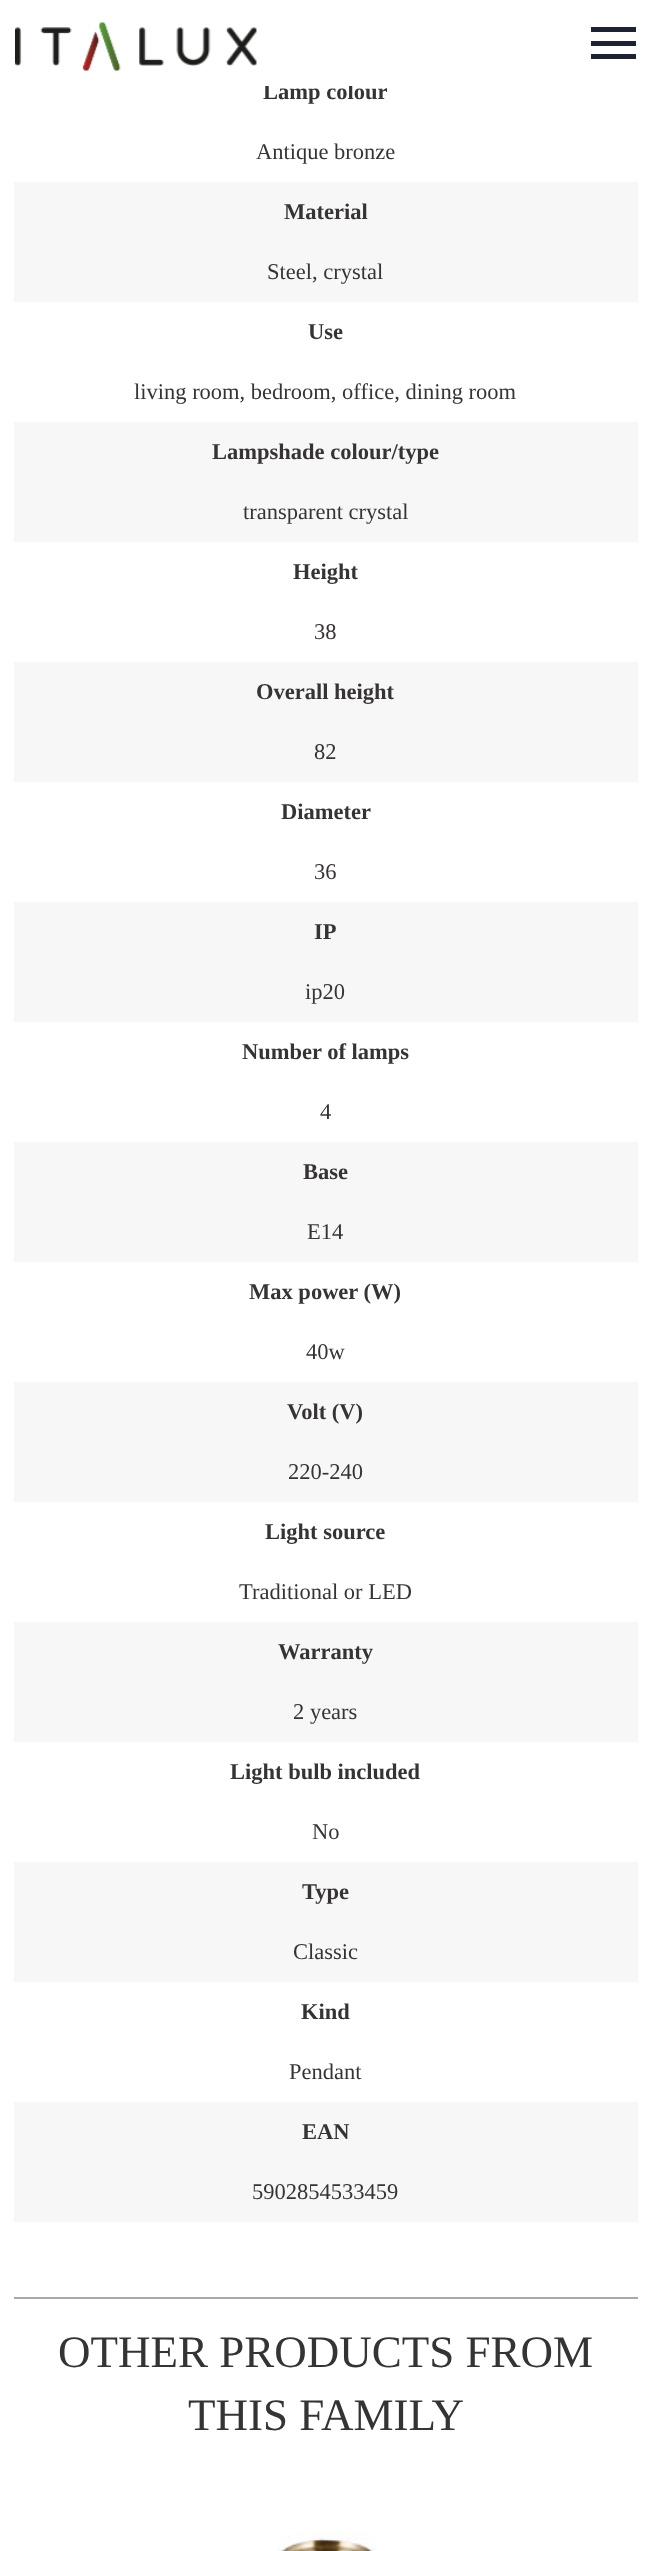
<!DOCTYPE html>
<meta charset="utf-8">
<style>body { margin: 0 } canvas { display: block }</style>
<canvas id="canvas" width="650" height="2551"></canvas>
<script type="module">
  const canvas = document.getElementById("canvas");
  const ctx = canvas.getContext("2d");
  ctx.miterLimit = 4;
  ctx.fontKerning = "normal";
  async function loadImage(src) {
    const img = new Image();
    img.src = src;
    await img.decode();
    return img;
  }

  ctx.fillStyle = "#ffffff";
  ctx.fillRect(0, 0, 650, 2551);
  ctx.font = "bold 22.5px Liberation Serif";
  ctx.fillStyle = "#363334";
  ctx.fillText("Lamp colour", 263, 99);
  ctx.fillStyle = "#ffffff";
  ctx.fillRect(263, 83, 90, 3);
  ctx.drawImage(await loadImage("img1.png"), 15, 22, 242, 49);
  ctx.fillStyle = "#1b2334";
  ctx.fillRect(591, 27, 45, 5);
  ctx.fillRect(591, 41, 45, 5);
  ctx.fillRect(591, 54, 45, 5);
  ctx.font = "22.5px Liberation Serif";
  ctx.fillStyle = "#363334";
  ctx.fillText("Antique bronze", 256, 159);
  ctx.fillStyle = "#f7f7f7";
  ctx.fillRect(14, 182, 624, 120);
  ctx.font = "bold 22.5px Liberation Serif";
  ctx.fillStyle = "#363334";
  ctx.fillText("Material", 284, 219);
  ctx.font = "22.5px Liberation Serif";
  ctx.fillText("Steel, crystal", 267, 279);
  ctx.font = "bold 22.5px Liberation Serif";
  ctx.fillText("Use", 308, 339);
  ctx.font = "22.5px Liberation Serif";
  ctx.fillText("living room, bedroom, office, dining room", 134, 399);
  ctx.fillStyle = "#f7f7f7";
  ctx.fillRect(14, 422, 624, 120);
  ctx.font = "bold 22.5px Liberation Serif";
  ctx.fillStyle = "#363334";
  ctx.fillText("Lampshade colour/type", 212, 459);
  ctx.font = "22.5px Liberation Serif";
  ctx.fillText("transparent crystal", 243, 519);
  ctx.font = "bold 22.5px Liberation Serif";
  ctx.fillText("Height", 293, 579);
  ctx.font = "22.5px Liberation Serif";
  ctx.fillText("38", 314, 639);
  ctx.fillStyle = "#f7f7f7";
  ctx.fillRect(14, 662, 624, 120);
  ctx.font = "bold 22.5px Liberation Serif";
  ctx.fillStyle = "#363334";
  ctx.fillText("Overall height", 256, 699);
  ctx.font = "22.5px Liberation Serif";
  ctx.fillText("82", 314, 759);
  ctx.font = "bold 22.5px Liberation Serif";
  ctx.fillText("Diameter", 281, 819);
  ctx.font = "22.5px Liberation Serif";
  ctx.fillText("36", 314, 879);
  ctx.fillStyle = "#f7f7f7";
  ctx.fillRect(14, 902, 624, 120);
  ctx.font = "bold 22.5px Liberation Serif";
  ctx.fillStyle = "#363334";
  ctx.fillText("IP", 314, 939);
  ctx.font = "22.5px Liberation Serif";
  ctx.fillText("ip20", 305, 999);
  ctx.font = "bold 22.5px Liberation Serif";
  ctx.fillText("Number of lamps", 242, 1059);
  ctx.font = "22.5px Liberation Serif";
  ctx.fillText("4", 320, 1119);
  ctx.fillStyle = "#f7f7f7";
  ctx.fillRect(14, 1142, 624, 120);
  ctx.font = "bold 22.5px Liberation Serif";
  ctx.fillStyle = "#363334";
  ctx.fillText("Base", 303, 1179);
  ctx.font = "22.5px Liberation Serif";
  ctx.fillText("E14", 307, 1239);
  ctx.font = "bold 22.5px Liberation Serif";
  ctx.fillText("Max power (W)", 249, 1299);
  ctx.font = "22.5px Liberation Serif";
  ctx.fillText("40w", 306, 1359);
  ctx.fillStyle = "#f7f7f7";
  ctx.fillRect(14, 1382, 624, 120);
  ctx.font = "bold 22.5px Liberation Serif";
  ctx.fillStyle = "#363334";
  ctx.fillText("Volt (V)", 287, 1419);
  ctx.font = "22.5px Liberation Serif";
  ctx.fillText("220-240", 288, 1479);
  ctx.font = "bold 22.5px Liberation Serif";
  ctx.fillText("Light source", 265, 1539);
  ctx.font = "22.5px Liberation Serif";
  ctx.fillText("Traditional or LED", 239, 1599);
  ctx.fillStyle = "#f7f7f7";
  ctx.fillRect(14, 1622, 624, 120);
  ctx.font = "bold 22.5px Liberation Serif";
  ctx.fillStyle = "#363334";
  ctx.fillText("Warranty", 278, 1659);
  ctx.font = "22.5px Liberation Serif";
  ctx.fillText("2 years", 293, 1719);
  ctx.font = "bold 22.5px Liberation Serif";
  ctx.fillText("Light bulb included", 230, 1779);
  ctx.font = "22.5px Liberation Serif";
  ctx.fillText("No", 312, 1839);
  ctx.fillStyle = "#f7f7f7";
  ctx.fillRect(14, 1862, 624, 120);
  ctx.font = "bold 22.5px Liberation Serif";
  ctx.fillStyle = "#363334";
  ctx.fillText("Type", 302, 1899);
  ctx.font = "22.5px Liberation Serif";
  ctx.fillText("Classic", 293, 1959);
  ctx.font = "bold 22.5px Liberation Serif";
  ctx.fillText("Kind", 301, 2019);
  ctx.font = "22.5px Liberation Serif";
  ctx.fillText("Pendant", 289, 2079);
  ctx.fillStyle = "#f7f7f7";
  ctx.fillRect(14, 2102, 624, 120);
  ctx.font = "bold 22.5px Liberation Serif";
  ctx.fillStyle = "#363334";
  ctx.fillText("EAN", 302, 2139);
  ctx.font = "22.5px Liberation Serif";
  ctx.fillText("5902854533459", 252, 2199);
  ctx.fillStyle = "#a8a8a9";
  ctx.fillRect(14, 2297, 624, 2);
  ctx.font = "45px Liberation Serif";
  ctx.fillStyle = "#363334";
  ctx.fillText("OTHER PRODUCTS FROM", 58, 2367);
  ctx.fillText("THIS FAMILY", 188, 2430);
  ctx.drawImage(await loadImage("img2.png"), 277, 2534, 99, 17);
</script>
